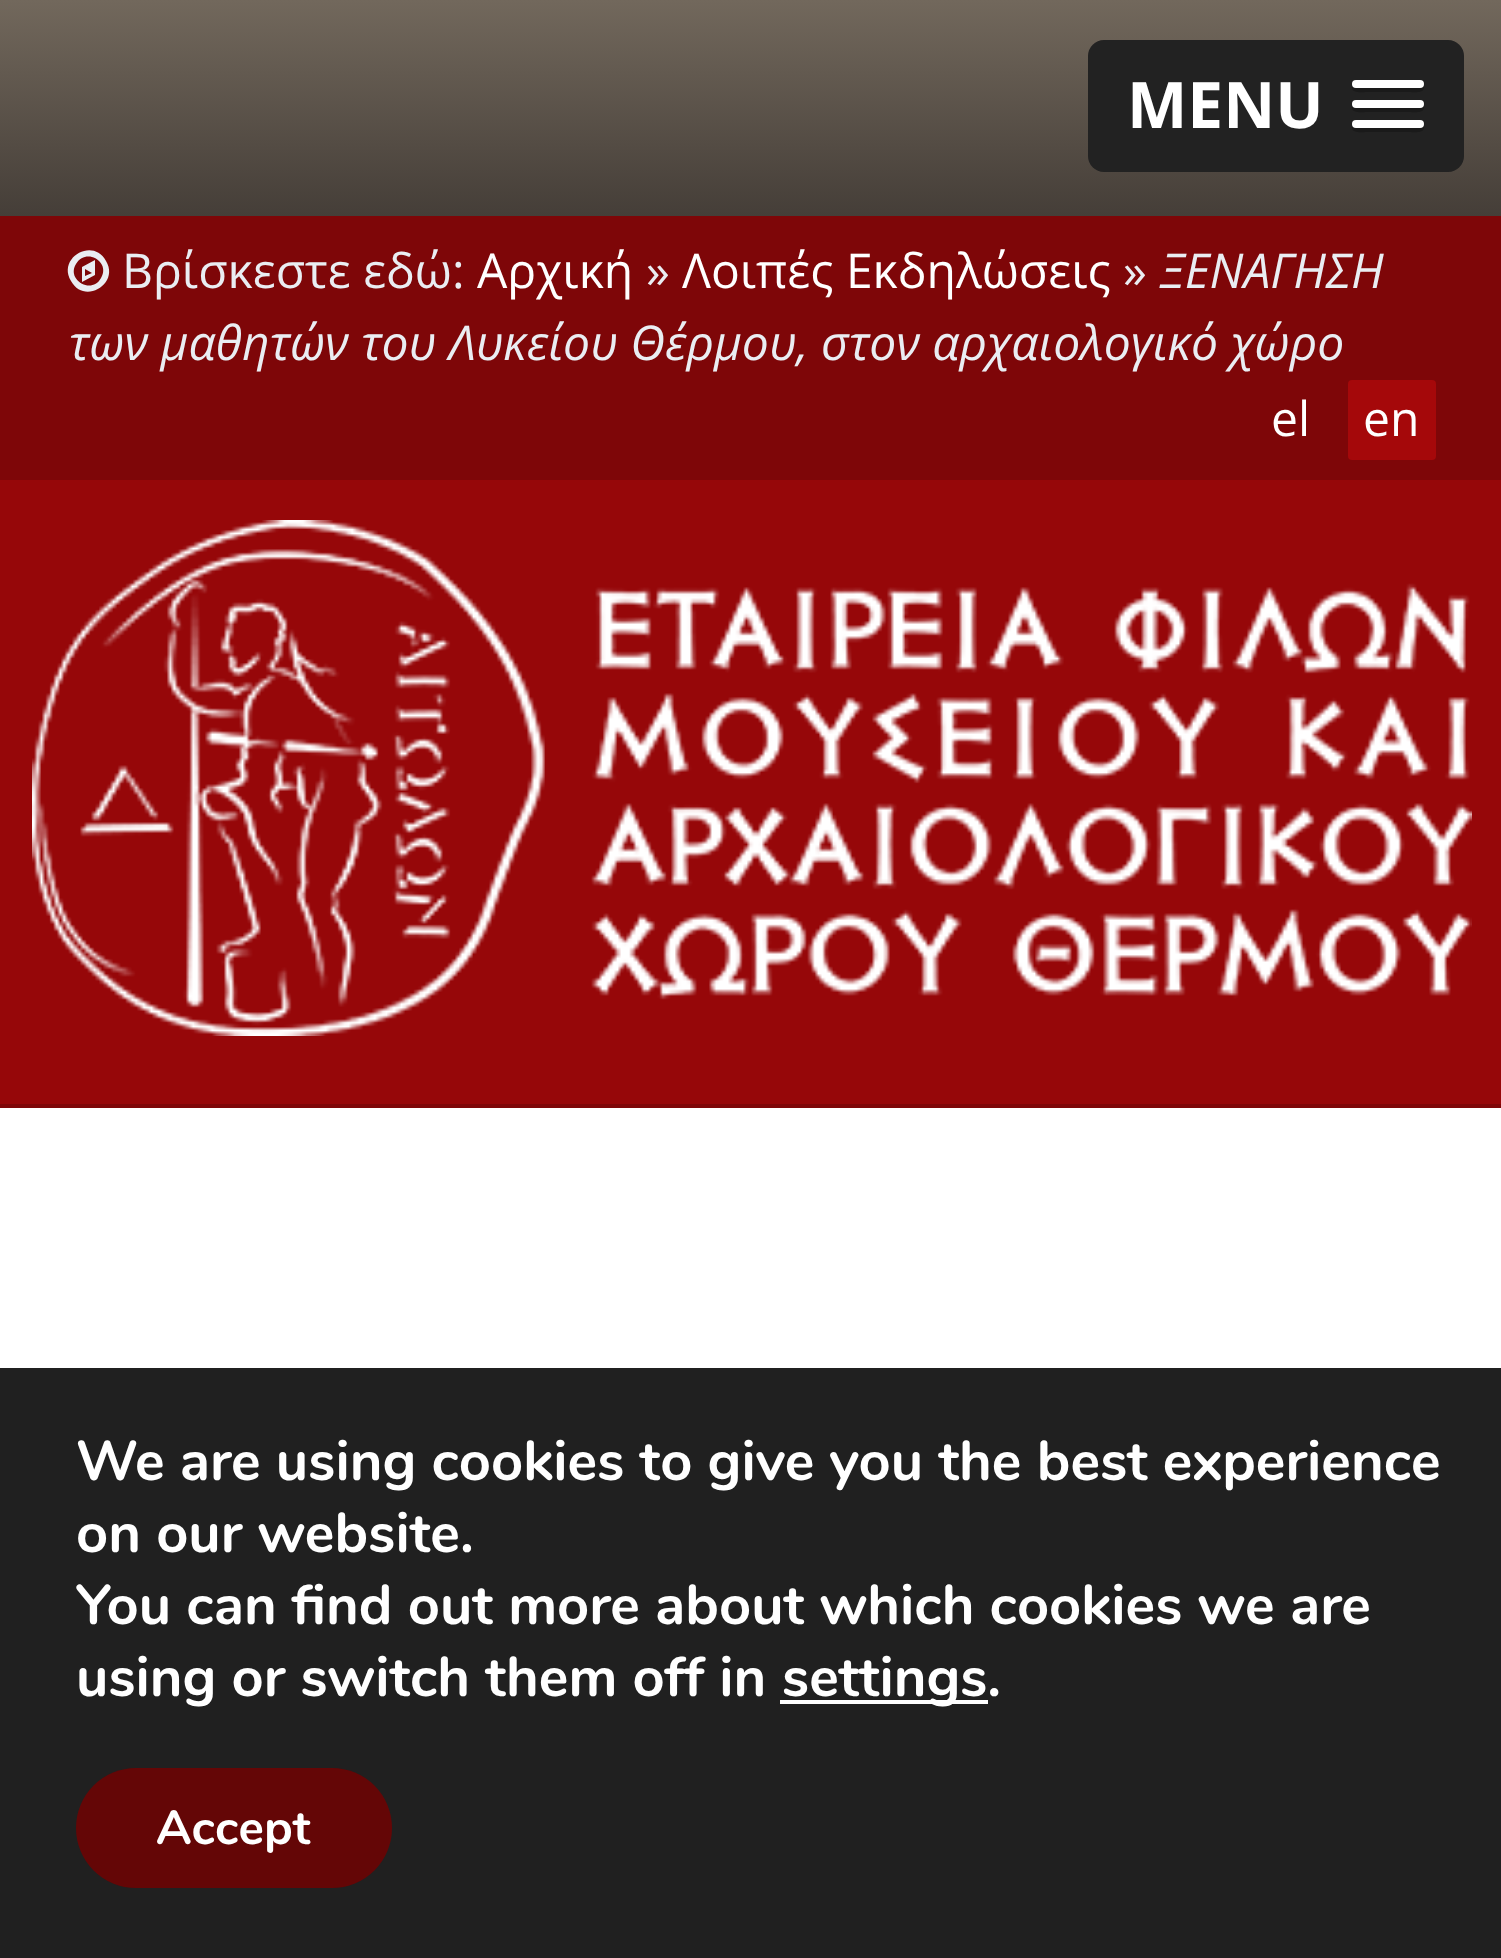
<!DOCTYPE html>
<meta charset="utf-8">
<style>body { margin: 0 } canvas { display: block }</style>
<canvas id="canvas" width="1501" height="1958"></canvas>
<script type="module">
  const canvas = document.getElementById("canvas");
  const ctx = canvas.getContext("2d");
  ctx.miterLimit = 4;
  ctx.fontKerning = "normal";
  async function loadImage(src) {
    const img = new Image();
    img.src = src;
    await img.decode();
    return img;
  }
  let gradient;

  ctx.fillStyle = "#ffffff";
  ctx.fillRect(0, 0, 1501, 1958);
  gradient = ctx.createLinearGradient(752, 0, 752, 216);
  gradient.addColorStop(0, "#72685c");
  gradient.addColorStop(1, "#453e38");
  ctx.fillStyle = gradient;
  ctx.fillRect(0, 0, 1501, 216);
  ctx.fillStyle = "#222222";
  ctx.beginPath();
  ctx.roundRect(1088, 40, 376, 132, 16);
  ctx.fill();
  ctx.font = "bold 64px Open Sans";
  ctx.fillStyle = "#ffffff";
  ctx.fillText("MENU", 1127, 128);
  ctx.fillStyle = "#1a1a1a";
  ctx.beginPath();
  ctx.moveTo(1353, 86);
  ctx.bezierCurveTo(1348, 94, 1366, 92, 1367, 92);
  ctx.lineTo(1409, 92);
  ctx.bezierCurveTo(1410, 92, 1428, 94, 1423, 86);
  ctx.bezierCurveTo(1423, 87, 1421, 88, 1420, 88);
  ctx.lineTo(1356, 88);
  ctx.bezierCurveTo(1355, 88, 1353, 87, 1353, 86);
  ctx.closePath();
  ctx.fill();
  ctx.fillStyle = "#ffffff";
  ctx.beginPath();
  ctx.roundRect(1352, 80, 72, 8, 4);
  ctx.fill();
  ctx.fillStyle = "#1a1a1a";
  ctx.beginPath();
  ctx.moveTo(1353, 106);
  ctx.bezierCurveTo(1348, 114, 1366, 112, 1367, 112);
  ctx.lineTo(1409, 112);
  ctx.bezierCurveTo(1410, 112, 1428, 114, 1423, 106);
  ctx.bezierCurveTo(1423, 107, 1421, 108, 1420, 108);
  ctx.lineTo(1356, 108);
  ctx.bezierCurveTo(1355, 108, 1353, 107, 1353, 106);
  ctx.closePath();
  ctx.fill();
  ctx.fillStyle = "#ffffff";
  ctx.beginPath();
  ctx.roundRect(1352, 100, 72, 8, 4);
  ctx.fill();
  ctx.fillStyle = "#1a1a1a";
  ctx.beginPath();
  ctx.moveTo(1353, 126);
  ctx.bezierCurveTo(1348, 134, 1366, 132, 1367, 132);
  ctx.lineTo(1409, 132);
  ctx.bezierCurveTo(1410, 132, 1428, 134, 1423, 126);
  ctx.bezierCurveTo(1423, 127, 1421, 128, 1420, 128);
  ctx.lineTo(1356, 128);
  ctx.bezierCurveTo(1355, 128, 1353, 127, 1353, 126);
  ctx.closePath();
  ctx.fill();
  ctx.fillStyle = "#ffffff";
  ctx.beginPath();
  ctx.roundRect(1352, 120, 72, 8, 4);
  ctx.fill();
  ctx.fillStyle = "#7e0608";
  ctx.fillRect(0, 216, 1501, 264);
  ctx.fillStyle = "#eaedf2";
  ctx.beginPath();
  ctx.moveTo(85, 276);
  ctx.lineTo(92, 273);
  ctx.lineTo(85, 269);
  ctx.closePath();
  ctx.moveTo(95, 260);
  ctx.lineTo(95, 275);
  ctx.lineTo(82, 282);
  ctx.lineTo(82, 267);
  ctx.closePath();
  ctx.moveTo(101, 278);
  ctx.bezierCurveTo(111, 262, 86, 247, 76, 264);
  ctx.bezierCurveTo(66, 280, 92, 295, 101, 278);
  ctx.closePath();
  ctx.moveTo(106, 261);
  ctx.bezierCurveTo(120, 284, 84, 305, 71, 281);
  ctx.bezierCurveTo(57, 258, 93, 237, 106, 261);
  ctx.closePath();
  ctx.fill();
  ctx.font = "48px Open Sans";
  ctx.fillText("Βρίσκεστε εδώ:", 122, 288);
  ctx.fillStyle = "#ffffff";
  ctx.fillText("Αρχική", 477, 288);
  ctx.fillStyle = "#eaedf2";
  ctx.fillText("»", 646, 288);
  ctx.fillStyle = "#ffffff";
  ctx.fillText("Λοιπές Εκδηλώσεις", 682, 288);
  ctx.fillStyle = "#eaedf2";
  ctx.fillText("»", 1123, 288);
  ctx.font = "italic 48px Open Sans";
  ctx.fillText("ΞΕΝΑΓΗΣΗ", 1160, 288);
  ctx.fillText("των μαθητών του Λυκείου Θέρμου, στον αρχαιολογικό χώρο", 69, 360);
  ctx.font = "48px Open Sans";
  ctx.fillStyle = "#ffffff";
  ctx.fillText("el", 1271, 436);
  ctx.fillStyle = "#a5080a";
  ctx.beginPath();
  ctx.roundRect(1348, 380, 88, 80, 4);
  ctx.fill();
  ctx.fillStyle = "#ffffff";
  ctx.fillText("en", 1363, 436);
  ctx.fillStyle = "#960709";
  ctx.fillRect(0, 480, 1501, 624);
  ctx.drawImage(await loadImage("img1.png"), 32, 520, 1440, 516);
  ctx.fillStyle = "#7e0608";
  ctx.fillRect(0, 1104, 1501, 4);
  ctx.fillStyle = "#202020";
  ctx.fillRect(0, 1368, 1501, 590);
  ctx.font = "bold 56px Nunito";
  ctx.fillStyle = "#ffffff";
  ctx.fillText("We are using cookies to give you the best experience", 76, 1480);
  ctx.fillText("on our website.", 76, 1552);
  ctx.fillText("You can find out more about which cookies we are", 76, 1624);
  ctx.fillText("using or switch them off in", 76, 1696);
  ctx.fillRect(780, 1700, 208, 4);
  ctx.fillText("settings.", 782, 1696);
  ctx.fillStyle = "#640606";
  ctx.beginPath();
  ctx.roundRect(76, 1768, 316, 120, 60);
  ctx.fill();
  ctx.font = "bold 48px Nunito";
  ctx.fillStyle = "#ffffff";
  ctx.fillText("Accept", 156, 1844);
</script>
